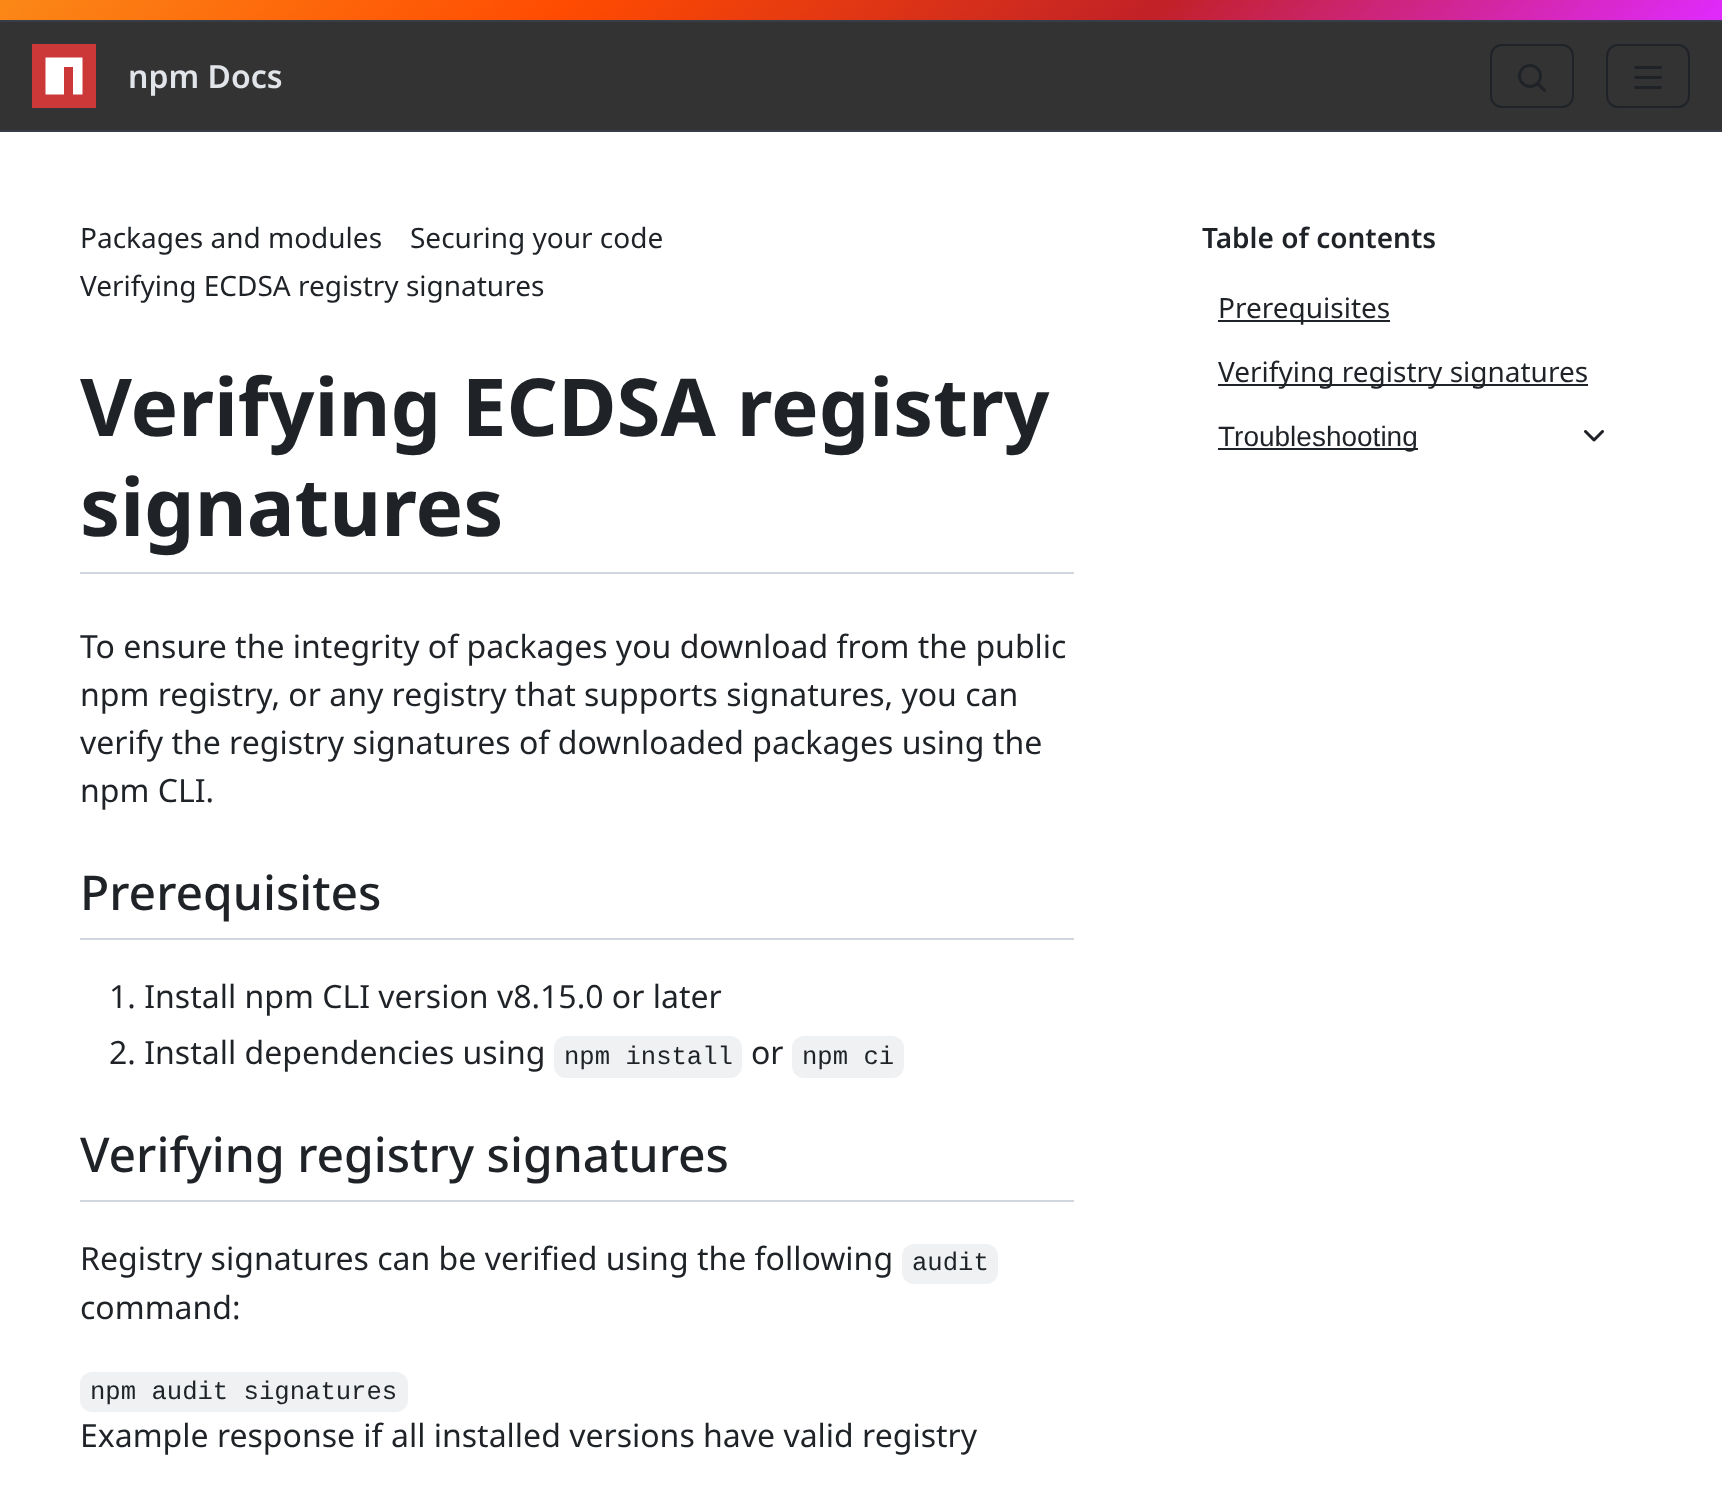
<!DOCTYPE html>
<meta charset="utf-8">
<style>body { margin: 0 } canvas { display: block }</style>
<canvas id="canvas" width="1722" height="1489"></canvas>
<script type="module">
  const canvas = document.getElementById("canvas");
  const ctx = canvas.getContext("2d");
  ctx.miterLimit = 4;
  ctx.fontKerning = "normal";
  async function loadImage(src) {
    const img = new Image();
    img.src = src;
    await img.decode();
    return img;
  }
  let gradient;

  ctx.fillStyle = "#ffffff";
  ctx.fillRect(0, 0, 1722, 1489);
  gradient = ctx.createLinearGradient(485, -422, 1237, 442);
  gradient.addColorStop(0, "#fb8817");
  gradient.addColorStop(0.33, "#ff4b01");
  gradient.addColorStop(0.67, "#c12127");
  gradient.addColorStop(1, "#e02aff");
  ctx.fillStyle = gradient;
  ctx.fillRect(0, 0, 1722, 20);
  ctx.fillStyle = "#333333";
  ctx.fillRect(0, 22, 1722, 108);
  ctx.fillStyle = "#373e47";
  ctx.fillRect(0, 20, 1722, 2);
  ctx.fillRect(0, 130, 1722, 2);
  ctx.fillStyle = "#cb3837";
  ctx.fillRect(32, 44, 64, 64);
  ctx.fillStyle = "#ffffff";
  ctx.beginPath();
  ctx.moveTo(45.5, 94.5);
  ctx.lineTo(64, 94.5);
  ctx.lineTo(64, 67);
  ctx.lineTo(73, 67);
  ctx.lineTo(73, 94.5);
  ctx.lineTo(82.5, 94.5);
  ctx.lineTo(82.5, 57.5);
  ctx.lineTo(45.5, 57.5);
  ctx.closePath();
  ctx.fill();
  ctx.font = "600 32px Noto Sans";
  ctx.fillStyle = "#e1e4e8";
  ctx.fillText("npm Docs", 128, 88);
  ctx.beginPath();
  ctx.roundRect(1491, 45, 82, 62, 11);
  ctx.strokeStyle = "#1f2328";
  ctx.lineWidth = 2;
  ctx.stroke();
  ctx.drawImage(await loadImage("img1.png"), 1518, 64, 28, 28);
  ctx.beginPath();
  ctx.roundRect(1607, 45, 82, 62, 11);
  ctx.stroke();
  ctx.drawImage(await loadImage("img2.png"), 1634, 66, 28, 23);
  ctx.font = "28px Noto Sans";
  ctx.fillStyle = "#1f2328";
  ctx.fillText("Packages and modules", 80, 248);
  ctx.fillText("Securing your code", 410, 248);
  ctx.fillText("Verifying ECDSA registry signatures", 80, 296);
  ctx.fillStyle = "#d0d7de";
  ctx.fillRect(80, 572, 994, 2);
  ctx.font = "bold 80px Noto Sans";
  ctx.fillStyle = "#1f2328";
  ctx.fillText("Verifying ECDSA registry", 80, 436);
  ctx.fillText("signatures", 80, 536);
  ctx.font = "32px Noto Sans";
  ctx.fillText("To ensure the integrity of packages you download from the public", 80, 658);
  ctx.fillText("npm registry, or any registry that supports signatures, you can", 80, 706);
  ctx.fillText("verify the registry signatures of downloaded packages using the", 80, 754);
  ctx.fillText("npm CLI.", 80, 802);
  ctx.fillStyle = "#d0d7de";
  ctx.fillRect(80, 938, 994, 2);
  ctx.font = "500 48px Noto Sans";
  ctx.fillStyle = "#1f2328";
  ctx.fillText("Prerequisites", 80, 910);
  ctx.font = "32px Noto Sans";
  ctx.fillText("1. Install npm CLI version v8.15.0 or later", 109, 1008);
  ctx.fillText("2. Install dependencies using", 109, 1064);
  ctx.fillStyle = "#eff1f3";
  ctx.beginPath();
  ctx.roundRect(554, 1036, 188, 42, 12);
  ctx.fill();
  ctx.font = "25.6px Liberation Mono";
  ctx.fillStyle = "#1f2328";
  ctx.fillText("npm install", 564, 1064);
  ctx.font = "32px Noto Sans";
  ctx.fillText("or", 751, 1064);
  ctx.fillStyle = "#eff1f3";
  ctx.beginPath();
  ctx.roundRect(792, 1036, 112, 42, 12);
  ctx.fill();
  ctx.font = "25.6px Liberation Mono";
  ctx.fillStyle = "#1f2328";
  ctx.fillText("npm ci", 802, 1064);
  ctx.fillStyle = "#d0d7de";
  ctx.fillRect(80, 1200, 994, 2);
  ctx.font = "500 48px Noto Sans";
  ctx.fillStyle = "#1f2328";
  ctx.fillText("Verifying registry signatures", 80, 1172);
  ctx.font = "32px Noto Sans";
  ctx.fillText("Registry signatures can be verified using the following", 80, 1270);
  ctx.fillStyle = "#eff1f3";
  ctx.beginPath();
  ctx.roundRect(902, 1244, 96, 40, 12);
  ctx.fill();
  ctx.font = "25.6px Liberation Mono";
  ctx.fillStyle = "#1f2328";
  ctx.fillText("audit", 912, 1270);
  ctx.font = "32px Noto Sans";
  ctx.fillText("command:", 80, 1319);
  ctx.fillStyle = "#eff1f3";
  ctx.beginPath();
  ctx.roundRect(80, 1372, 328, 40, 12);
  ctx.fill();
  ctx.font = "25.6px Liberation Mono";
  ctx.fillStyle = "#1f2328";
  ctx.fillText("npm audit signatures", 90, 1399);
  ctx.font = "32px Noto Sans";
  ctx.fillText("Example response if all installed versions have valid registry", 80, 1447);
  ctx.font = "600 28px Noto Sans";
  ctx.fillText("Table of contents", 1202, 248);
  ctx.fillRect(1218, 320, 172, 2);
  ctx.font = "28px Noto Sans";
  ctx.fillText("Prerequisites", 1218, 318);
  ctx.fillRect(1218, 384, 370, 2);
  ctx.fillText("Verifying registry signatures", 1218, 382);
  ctx.fillRect(1218, 448, 200, 2);
  ctx.font = "28px Liberation Sans";
  ctx.fillText("Troubleshooting", 1218, 446);
  ctx.drawImage(await loadImage("img3.png"), 1584, 430, 20, 12);
</script>
